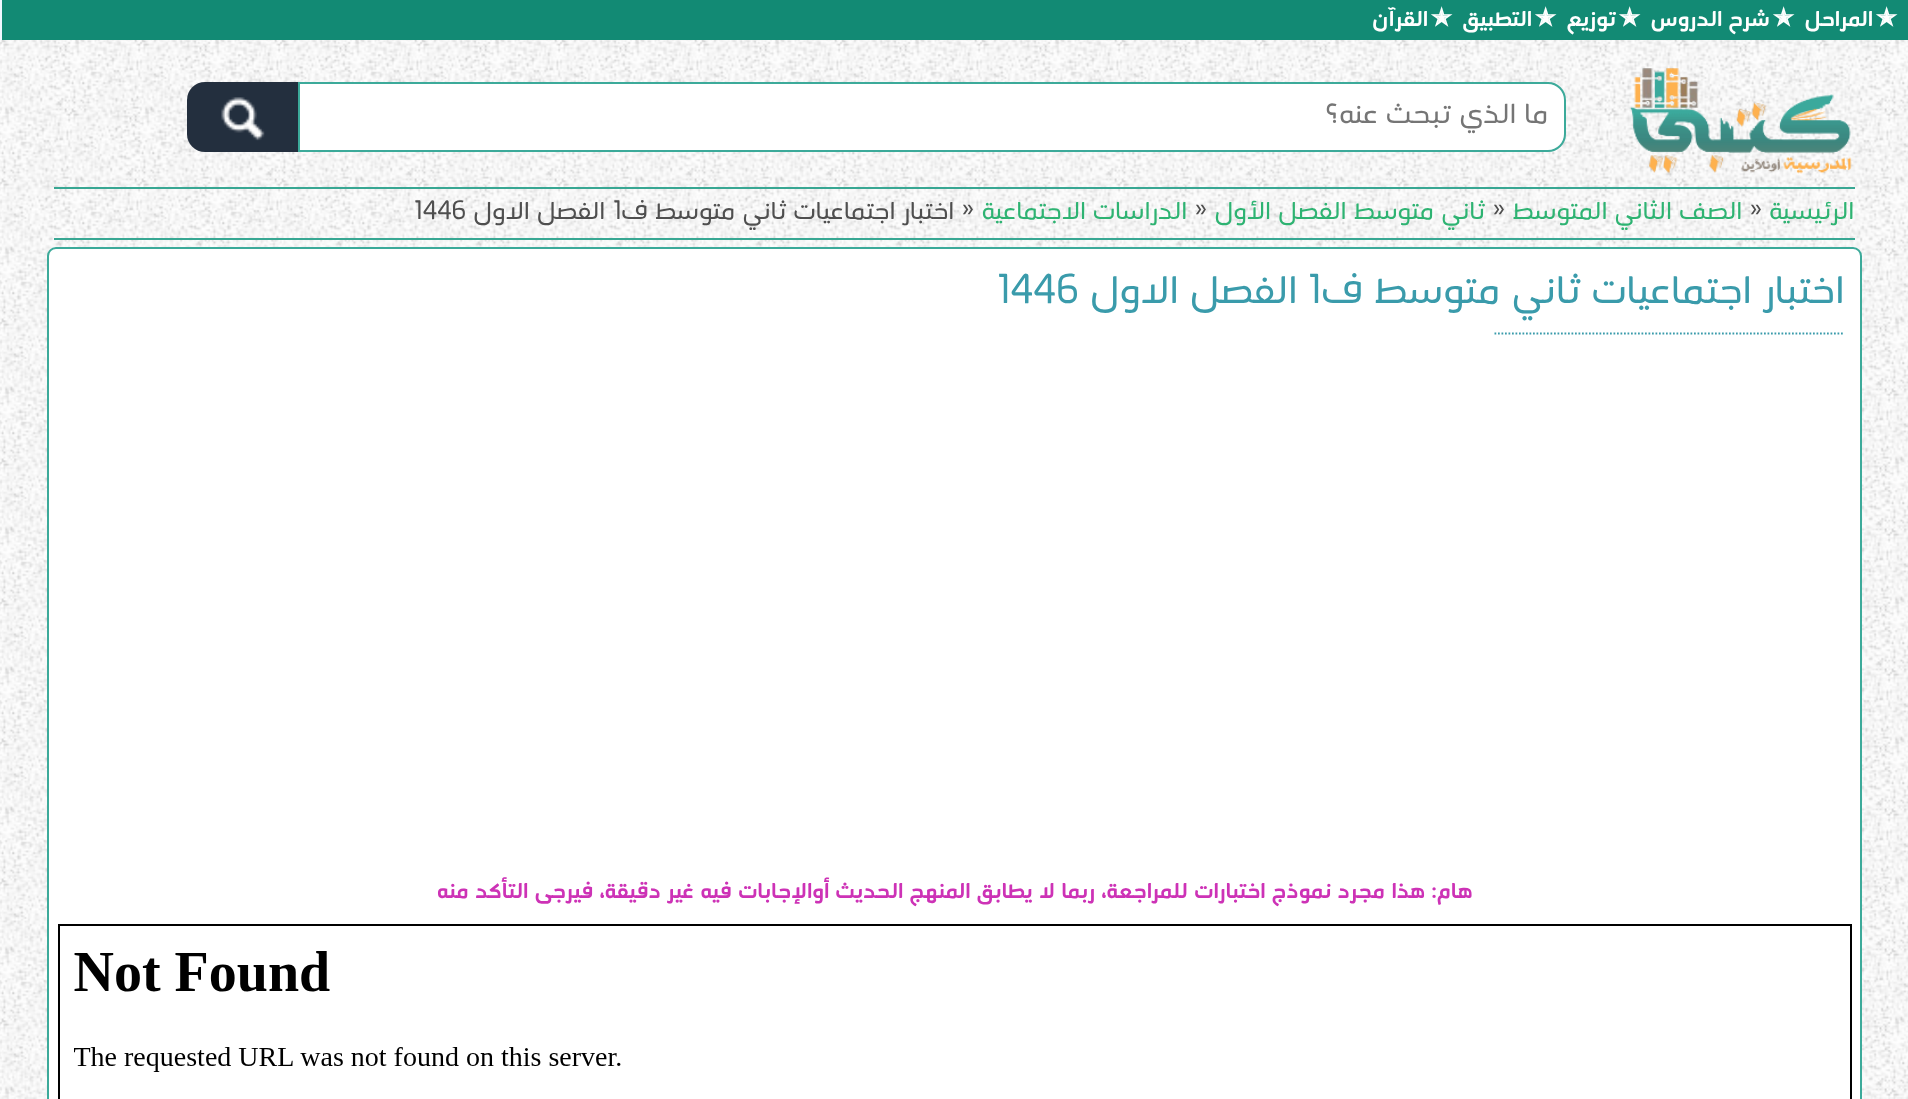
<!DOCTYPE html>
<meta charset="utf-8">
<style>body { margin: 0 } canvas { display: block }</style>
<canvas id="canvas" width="1908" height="1099"></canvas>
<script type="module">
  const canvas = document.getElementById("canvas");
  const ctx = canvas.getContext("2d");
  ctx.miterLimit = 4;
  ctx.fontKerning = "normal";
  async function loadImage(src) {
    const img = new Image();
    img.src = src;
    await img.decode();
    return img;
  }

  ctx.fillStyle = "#128a74";
  ctx.fillRect(0, 0, 1908, 1099);
  ctx.fillStyle = "#f0f8ff";
  ctx.fillRect(0, 0, 2, 40);
  ctx.font = "bold 24.5px DejaVu Sans";
  ctx.fillStyle = "#ffffff";
  ctx.fillText("✭", 1876, 26);
  ctx.direction = "rtl";
  ctx.font = "bold 24.5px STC";
  ctx.fillText("المراحل", 1873, 26);
  ctx.direction = "ltr";
  ctx.font = "bold 24.5px DejaVu Sans";
  ctx.fillText("✭", 1773, 26);
  ctx.direction = "rtl";
  ctx.font = "bold 24.5px STC";
  ctx.fillText("شرح الدروس", 1770, 26);
  ctx.direction = "ltr";
  ctx.font = "bold 24.5px DejaVu Sans";
  ctx.fillText("✭", 1619, 26);
  ctx.direction = "rtl";
  ctx.font = "bold 24.5px STC";
  ctx.fillText("توزيع", 1616, 26);
  ctx.direction = "ltr";
  ctx.font = "bold 24.5px DejaVu Sans";
  ctx.fillText("✭", 1535, 26);
  ctx.direction = "rtl";
  ctx.font = "bold 24.5px STC";
  ctx.fillText("التطبيق", 1532, 26);
  ctx.direction = "ltr";
  ctx.font = "bold 24.5px DejaVu Sans";
  ctx.fillText("✭", 1431, 26);
  ctx.direction = "rtl";
  ctx.font = "bold 24.5px STC";
  ctx.fillText("القرآن", 1428, 26);
  ctx.drawImage(await loadImage("img1.png"), 0, 40, 1908, 1059);
  ctx.drawImage(await loadImage("img2.png"), 1629, 68, 223, 106);
  ctx.beginPath();
  ctx.roundRect(299, 83, 1266, 68, [0, 17, 17, 0]);
  ctx.fill();
  ctx.strokeStyle = "#3caa9a";
  ctx.lineWidth = 2;
  ctx.stroke();
  ctx.font = "31.5px STC";
  ctx.fillStyle = "#757575";
  ctx.fillText("ما الذي تبحث عنه؟", 1548, 123);
  ctx.fillStyle = "#232f3e";
  ctx.beginPath();
  ctx.roundRect(187, 82, 111, 70, [18, 0, 0, 18]);
  ctx.fill();
  ctx.drawImage(await loadImage("img3.png"), 221, 97, 44, 44);
  ctx.fillStyle = "#38a793";
  ctx.fillRect(54, 187, 1801, 2);
  ctx.fillRect(54, 238, 1801, 2);
  ctx.font = "28px STC";
  ctx.fillStyle = "#2eb372";
  ctx.fillText("الرئيسية", 1854, 219);
  ctx.direction = "ltr";
  ctx.fillStyle = "#4f4f4f";
  ctx.fillText("»", 1749, 219);
  ctx.direction = "rtl";
  ctx.fillStyle = "#2eb372";
  ctx.fillText("الصف الثاني المتوسط", 1742, 219);
  ctx.direction = "ltr";
  ctx.fillStyle = "#4f4f4f";
  ctx.fillText("»", 1492, 219);
  ctx.direction = "rtl";
  ctx.fillStyle = "#2eb372";
  ctx.fillText("ثاني متوسط الفصل الأول", 1485, 219);
  ctx.direction = "ltr";
  ctx.fillStyle = "#4f4f4f";
  ctx.fillText("»", 1194, 219);
  ctx.direction = "rtl";
  ctx.fillStyle = "#2eb372";
  ctx.fillText("الدراسات الاجتماعية", 1187, 219);
  ctx.direction = "ltr";
  ctx.fillStyle = "#4f4f4f";
  ctx.fillText("»", 961, 219);
  ctx.direction = "rtl";
  ctx.fillText("اختبار اجتماعيات ثاني متوسط ف", 954, 219);
  ctx.direction = "ltr";
  ctx.fillText("1", 613, 219);
  ctx.direction = "rtl";
  ctx.fillText("الفصل الاول", 605, 219);
  ctx.direction = "ltr";
  ctx.fillText("1446", 414, 219);
  ctx.fillStyle = "#ffffff";
  ctx.beginPath();
  ctx.roundRect(48, 248, 1813, 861, 8);
  ctx.fill();
  ctx.stroke();
  ctx.direction = "rtl";
  ctx.font = "44px STC";
  ctx.fillStyle = "#3a9bab";
  ctx.fillText("اختبار اجتماعيات ثاني متوسط ف", 1844, 303);
  ctx.direction = "ltr";
  ctx.fillText("1", 1308, 303);
  ctx.direction = "rtl";
  ctx.fillText("الفصل الاول", 1297, 303);
  ctx.direction = "ltr";
  ctx.fillText("1446", 997, 303);
  ctx.beginPath();
  ctx.moveTo(1494.5, 333.5);
  ctx.lineTo(1844.5, 333.5);
  ctx.strokeStyle = "#3a9bab";
  ctx.lineWidth = 1.8;
  ctx.setLineDash([1.75, 1.75]);
  ctx.stroke();
  ctx.direction = "rtl";
  ctx.font = "bold 24.5px STC";
  ctx.fillStyle = "#cd32b6";
  ctx.fillText("هام: هذا مجرد نموذج اختبارات للمراجعة، ربما لا يطابق المنهج الحديث أوالإجابات فيه غير دقيقة، فيرجى التأكد منه", 1473, 898);
  ctx.strokeStyle = "#000000";
  ctx.lineWidth = 2;
  ctx.setLineDash([]);
  ctx.strokeRect(59, 925, 1792, 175);
  ctx.drawImage(await loadImage("img4.png"), 74, 951, 547, 121);
</script>
